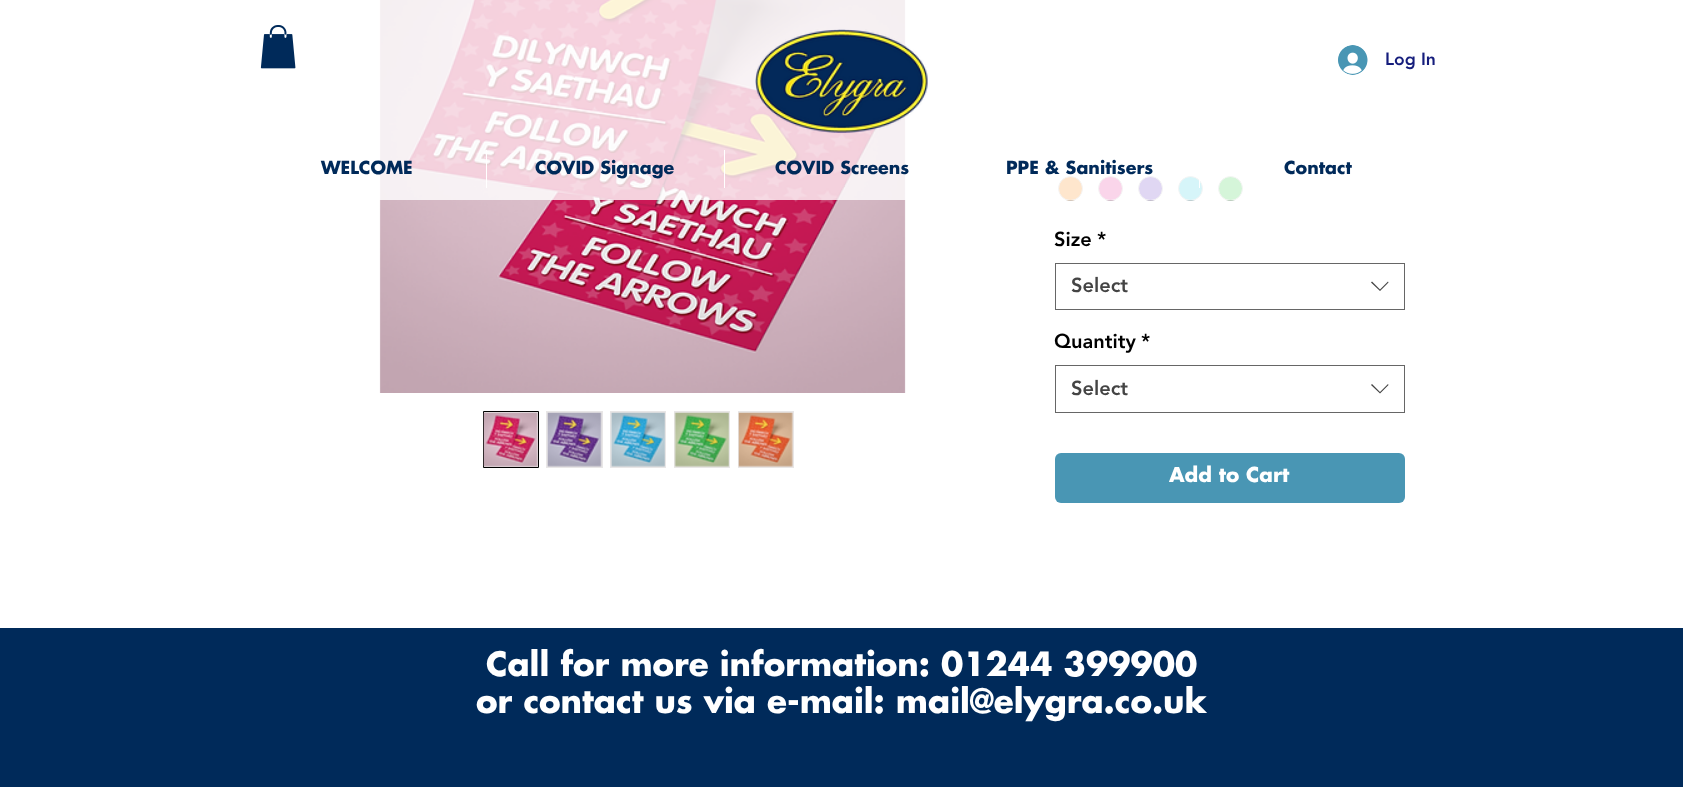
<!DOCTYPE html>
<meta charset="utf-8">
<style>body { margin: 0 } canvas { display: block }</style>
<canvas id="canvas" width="1683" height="787"></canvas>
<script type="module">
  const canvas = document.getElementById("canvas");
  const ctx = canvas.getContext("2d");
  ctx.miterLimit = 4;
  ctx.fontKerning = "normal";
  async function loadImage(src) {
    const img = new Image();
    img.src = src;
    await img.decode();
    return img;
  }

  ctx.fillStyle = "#ffffff";
  ctx.fillRect(0, 0, 1683, 787);
  ctx.drawImage(await loadImage("img4.png"), 379, 0, 527, 393);
  ctx.fillStyle = "#fb8208";
  ctx.beginPath();
  ctx.arc(1070.5, 188.5, 12, 0, Math.PI * 2);
  ctx.fill();
  ctx.strokeStyle = "#c9c9c9";
  ctx.stroke();
  ctx.fillStyle = "#e52d97";
  ctx.beginPath();
  ctx.arc(1110.5, 188.5, 12, 0, Math.PI * 2);
  ctx.fill();
  ctx.stroke();
  ctx.fillStyle = "#6737c0";
  ctx.beginPath();
  ctx.arc(1150.5, 188.5, 12, 0, Math.PI * 2);
  ctx.fill();
  ctx.stroke();
  ctx.fillStyle = "#34cbe1";
  ctx.beginPath();
  ctx.arc(1190.5, 188.5, 12, 0, Math.PI * 2);
  ctx.fill();
  ctx.stroke();
  ctx.fillStyle = "#2ecc42";
  ctx.beginPath();
  ctx.arc(1230.5, 188.5, 12, 0, Math.PI * 2);
  ctx.fill();
  ctx.stroke();
  ctx.fillStyle = "rgba(255, 255, 255, 0.8)";
  ctx.fillRect(379, 0, 864, 200);
  ctx.drawImage(await loadImage("img1.png"), 260, 25, 36, 44);
  ctx.drawImage(await loadImage("img2.png"), 755, 29, 173, 104);
  ctx.drawImage(await loadImage("img3.png"), 1338, 45, 30, 30);
  ctx.font = "900 17.5px 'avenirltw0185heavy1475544'";
  ctx.fillStyle = "#151d7c";
  ctx.fillText("Log In", 1385, 65);
  ctx.font = "bold 17.5px Futura";
  ctx.fillStyle = "#002a5a";
  ctx.fillText("WELCOME", 321, 174);
  ctx.fillStyle = "#ffffff";
  ctx.fillRect(486, 150, 1, 38);
  ctx.fillStyle = "#002a5a";
  ctx.fillText("COVID Signage", 535, 174);
  ctx.fillStyle = "#ffffff";
  ctx.fillRect(724, 150, 1, 38);
  ctx.fillStyle = "#002a5a";
  ctx.fillText("COVID Screens", 775, 174);
  ctx.fillText("PPE & Sanitisers", 1006, 174);
  ctx.fillStyle = "#ffffff";
  ctx.fillRect(1199, 179, 1, 9);
  ctx.fillStyle = "#002a5a";
  ctx.fillText("Contact", 1284, 174);
  ctx.fillStyle = "#e8e6e6";
  ctx.beginPath();
  ctx.rect(483.5, 411.5, 55, 56);
  ctx.fill();
  ctx.strokeStyle = "#000000";
  ctx.stroke();
  ctx.drawImage(await loadImage("img5.png"), 483, 412, 55, 55);
  ctx.fillRect(546, 411, 57, 57);
  ctx.drawImage(await loadImage("img6.png"), 547, 412, 55, 55);
  ctx.fillRect(610, 411, 56, 57);
  ctx.drawImage(await loadImage("img7.png"), 610, 412, 55, 55);
  ctx.fillRect(674, 411, 56, 57);
  ctx.drawImage(await loadImage("img8.png"), 674, 412, 55, 55);
  ctx.fillRect(738, 411, 56, 57);
  ctx.drawImage(await loadImage("img9.png"), 738, 412, 55, 55);
  ctx.font = "900 20px 'avenirltw0185heavy1475544'";
  ctx.fillStyle = "#000000";
  ctx.fillText("Size", 1054, 246);
  ctx.fillText("*", 1097, 246);
  ctx.strokeStyle = "#666666";
  ctx.strokeRect(1055.5, 263.5, 349, 46);
  ctx.fillStyle = "#444444";
  ctx.fillText("Select", 1071, 292);
  ctx.beginPath();
  ctx.moveTo(1388, 281.5);
  ctx.lineTo(1388.5, 282.5);
  ctx.lineTo(1380, 291);
  ctx.lineTo(1371, 282.5);
  ctx.lineTo(1372, 281.5);
  ctx.lineTo(1380, 289.5);
  ctx.closePath();
  ctx.fill("evenodd");
  ctx.fillStyle = "#000000";
  ctx.fillText("Quantity", 1054, 348);
  ctx.fillText("*", 1141, 348);
  ctx.strokeRect(1055.5, 365.5, 349, 47);
  ctx.fillStyle = "#444444";
  ctx.fillText("Select", 1071, 395);
  ctx.beginPath();
  ctx.moveTo(1388, 384);
  ctx.lineTo(1388.5, 385);
  ctx.lineTo(1380, 393.5);
  ctx.lineTo(1371, 385);
  ctx.lineTo(1372, 384);
  ctx.lineTo(1380, 392);
  ctx.closePath();
  ctx.fill("evenodd");
  ctx.fillStyle = "#4996b4";
  ctx.beginPath();
  ctx.roundRect(1055, 453, 350, 50, 6);
  ctx.fill();
  ctx.font = "bold 20px Futura";
  ctx.fillStyle = "#ffffff";
  ctx.fillText("Add to Cart", 1169, 482);
  ctx.fillStyle = "#002a5a";
  ctx.fillRect(0, 628, 1683, 159);
  ctx.font = "bold 32.5px Futura";
  ctx.fillStyle = "#ffffff";
  ctx.fillText("Call for more information: 01244 399900", 486, 676);
  ctx.fillText("or contact us via e-mail: mail@elygra.co.uk", 476, 713);
</script>
